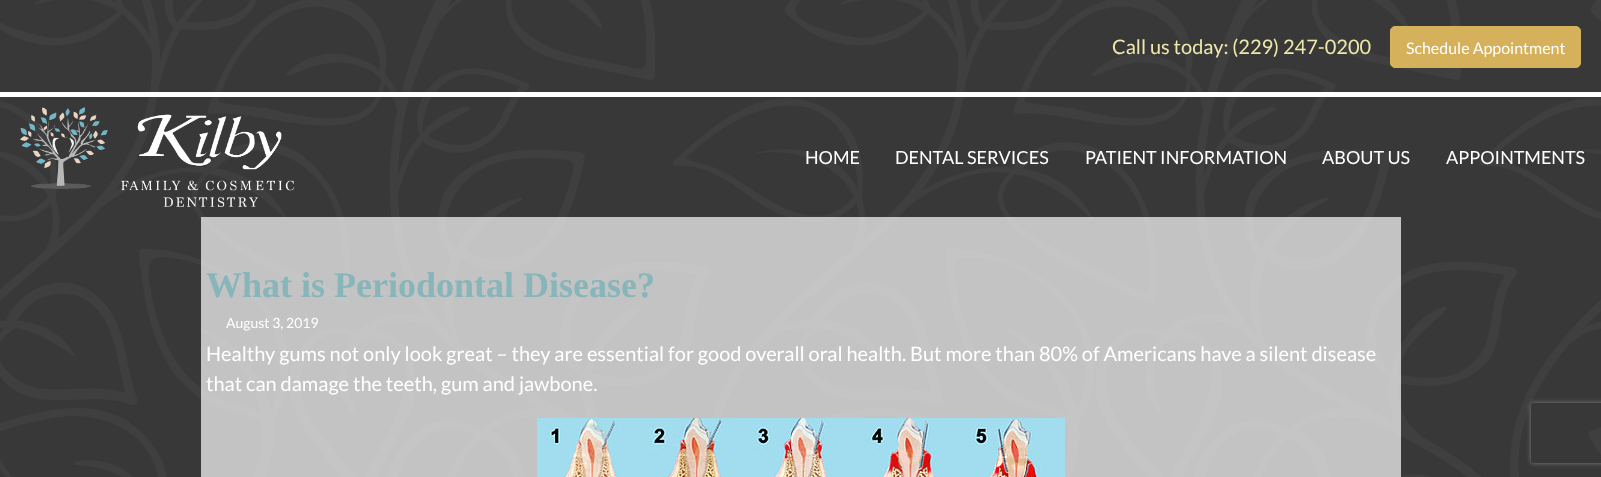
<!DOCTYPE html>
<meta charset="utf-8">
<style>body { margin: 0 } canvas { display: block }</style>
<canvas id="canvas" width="1601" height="477"></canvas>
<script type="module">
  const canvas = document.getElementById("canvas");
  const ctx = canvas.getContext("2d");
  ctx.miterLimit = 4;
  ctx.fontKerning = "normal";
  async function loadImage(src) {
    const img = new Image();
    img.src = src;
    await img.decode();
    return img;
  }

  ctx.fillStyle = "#ffffff";
  ctx.fillRect(0, 0, 1601, 477);
  ctx.drawImage(await loadImage("img1.png"), 0, 0, 1601, 477);
  ctx.fillRect(0, 92, 1601, 5);
  ctx.font = "20px Lato";
  ctx.fillStyle = "#eee8aa";
  ctx.fillText("Call us today: (229) 247-0200", 1112, 54);
  ctx.fillStyle = "#d6b15c";
  ctx.beginPath();
  ctx.roundRect(1390.5, 26.5, 190, 41, 4.5);
  ctx.fill();
  ctx.strokeStyle = "#d6b15c";
  ctx.stroke();
  ctx.font = "16px Lato";
  ctx.fillStyle = "#ffffff";
  ctx.fillText("Schedule Appointment", 1406, 54);
  ctx.drawImage(await loadImage("img2.png"), 20, 107, 274, 100);
  ctx.font = "18px Lato";
  ctx.fillText("HOME", 805, 164);
  ctx.fillText("DENTAL SERVICES", 895, 164);
  ctx.fillText("PATIENT INFORMATION", 1085, 164);
  ctx.fillText("ABOUT US", 1322, 164);
  ctx.fillText("APPOINTMENTS", 1446, 164);
  ctx.fillStyle = "rgba(255, 255, 255, 0.7)";
  ctx.fillRect(201, 217, 1200, 260);
  ctx.font = "bold 36px Liberation Serif";
  ctx.fillStyle = "#86b5ba";
  ctx.fillText("What is Periodontal Disease?", 206, 297);
  ctx.font = "14px Lato";
  ctx.fillStyle = "#ffffff";
  ctx.fillText("August 3, 2019", 226, 328);
  ctx.font = "20px Lato";
  ctx.fillText("Healthy gums not only look great – they are essential for good overall oral health. But more than 80% of Americans have a silent disease", 206, 361);
  ctx.fillText("that can damage the teeth, gum and jawbone.", 206, 391);
  ctx.drawImage(await loadImage("img3.png"), 537, 418, 528, 59);
  ctx.save();
  ctx.beginPath();
  ctx.moveTo(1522, 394);
  ctx.lineTo(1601, 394);
  ctx.lineTo(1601, 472);
  ctx.lineTo(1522, 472);
  ctx.closePath();
  ctx.moveTo(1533, 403);
  ctx.lineTo(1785, 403);
  ctx.bezierCurveTo(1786, 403, 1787, 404, 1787, 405);
  ctx.lineTo(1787, 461);
  ctx.bezierCurveTo(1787, 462, 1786, 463, 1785, 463);
  ctx.lineTo(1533, 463);
  ctx.bezierCurveTo(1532, 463, 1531, 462, 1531, 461);
  ctx.lineTo(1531, 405);
  ctx.bezierCurveTo(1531, 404, 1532, 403, 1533, 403);
  ctx.closePath();
  ctx.clip("evenodd");
  ctx.fillStyle = "#808080";
  ctx.filter = "blur(2.5px)";
  ctx.beginPath();
  ctx.roundRect(1531, 403, 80, 60, 2);
  ctx.fill();
  ctx.filter = "none";
  ctx.restore();
</script>
